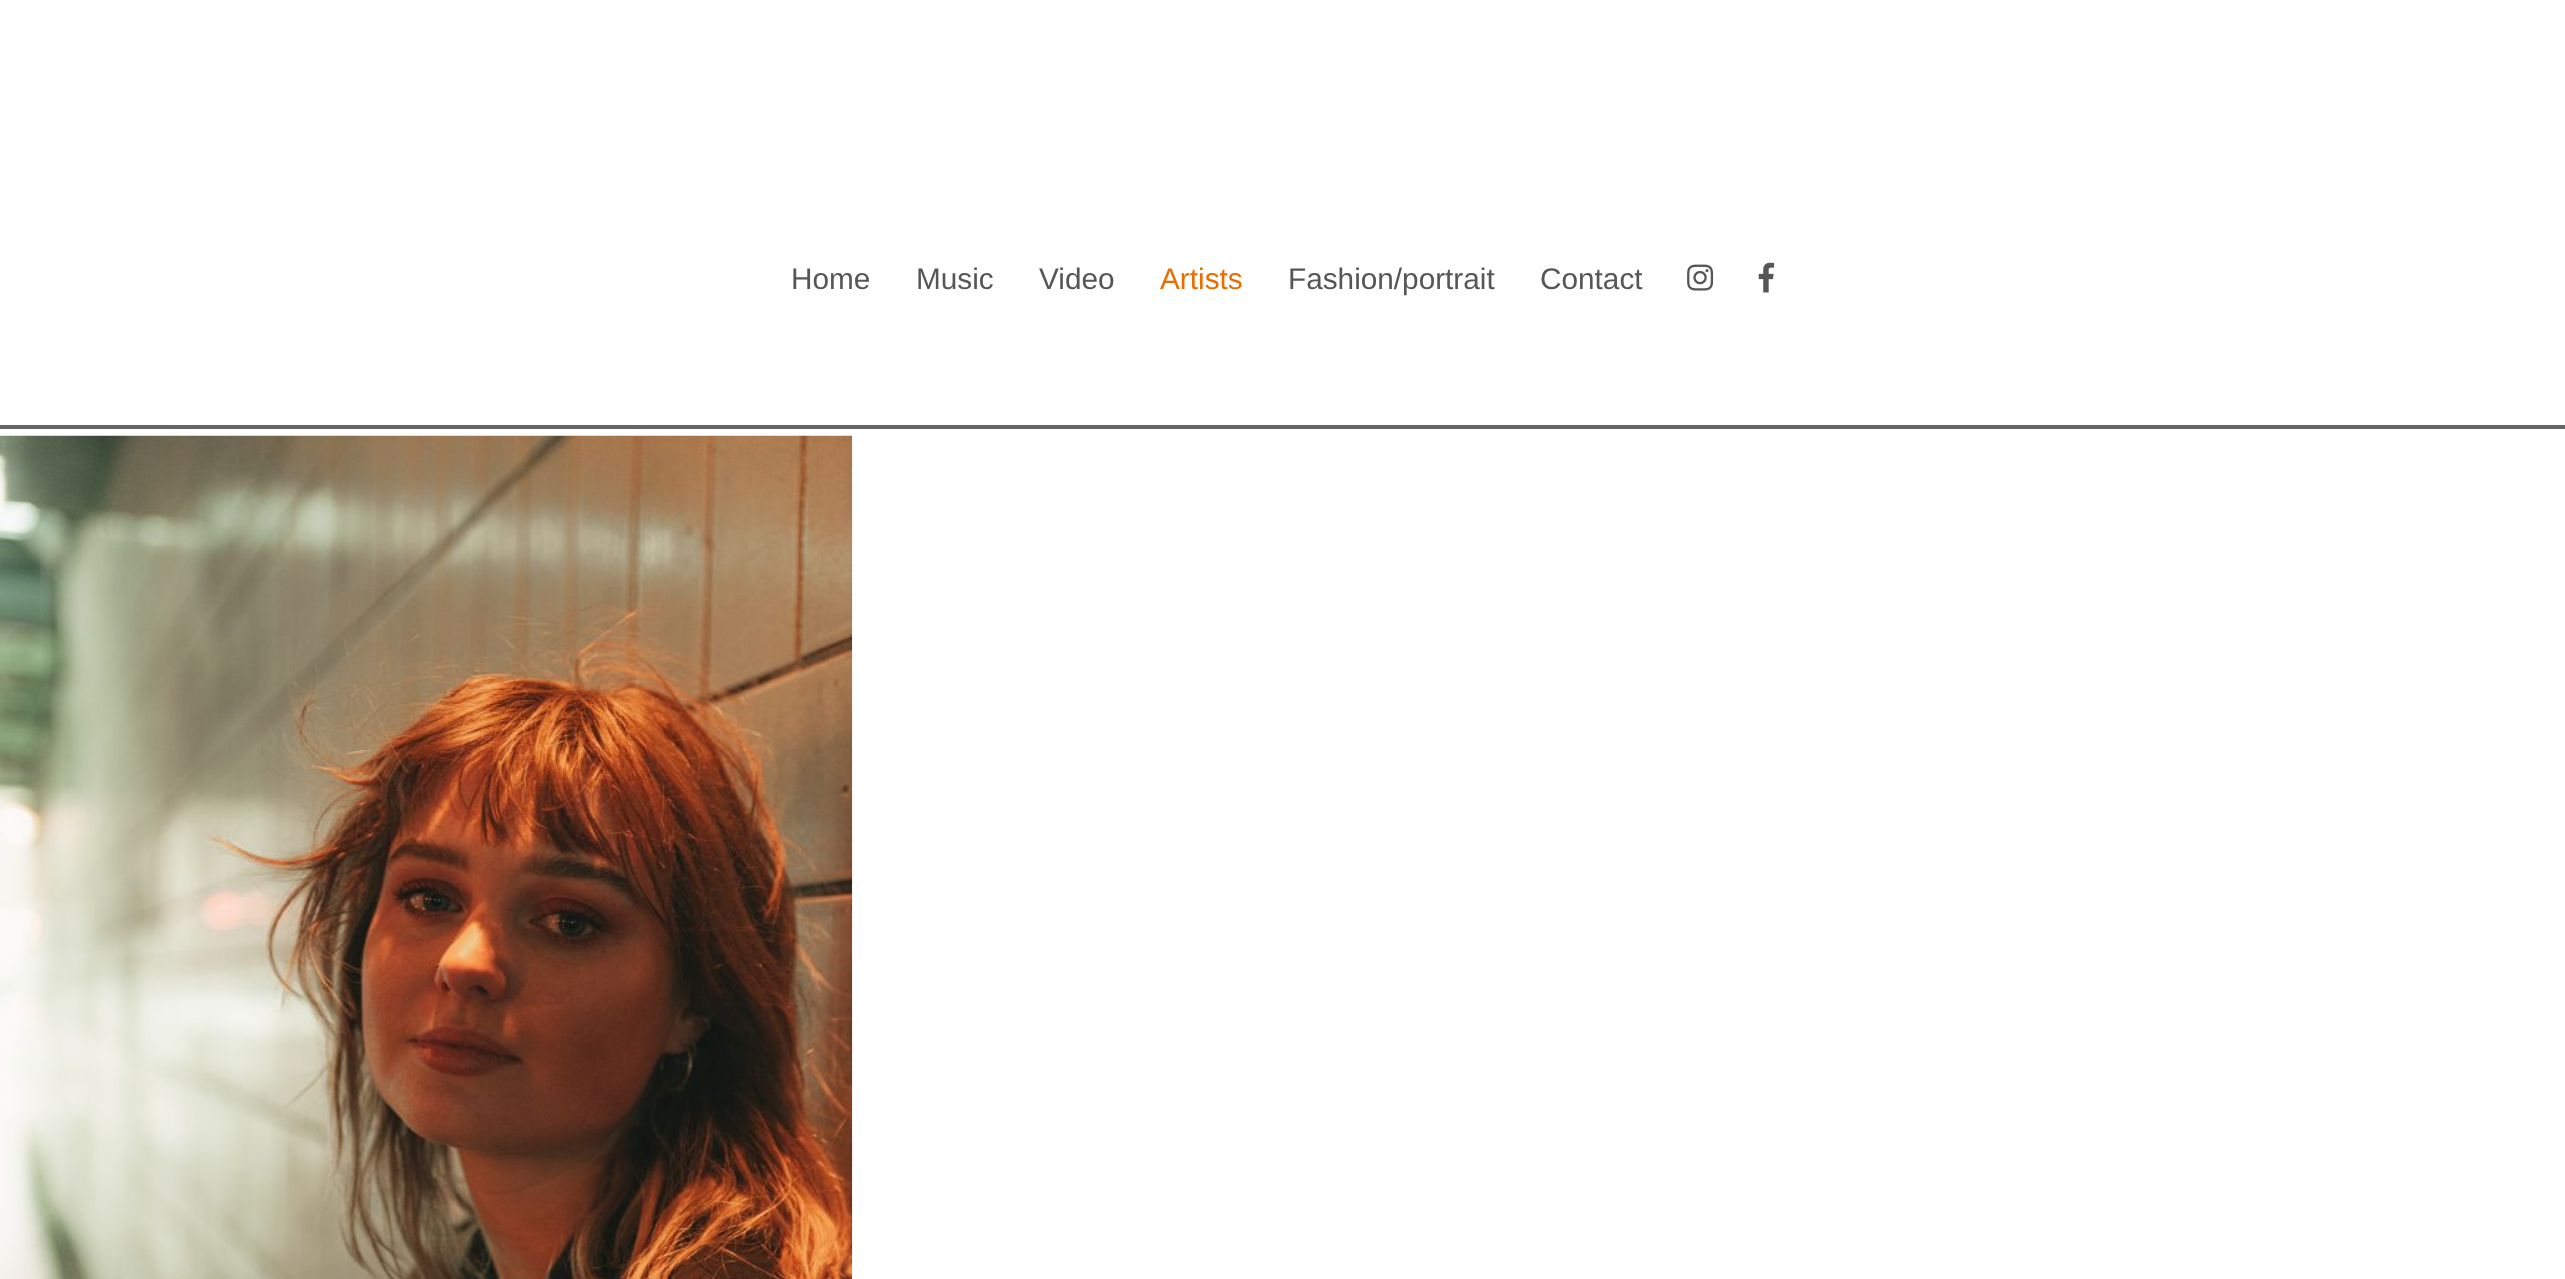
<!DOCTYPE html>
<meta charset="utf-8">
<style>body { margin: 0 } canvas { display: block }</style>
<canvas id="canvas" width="2565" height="1279"></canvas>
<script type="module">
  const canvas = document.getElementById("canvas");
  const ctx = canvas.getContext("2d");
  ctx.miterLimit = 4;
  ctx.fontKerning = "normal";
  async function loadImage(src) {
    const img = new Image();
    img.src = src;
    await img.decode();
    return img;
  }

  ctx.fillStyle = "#ffffff";
  ctx.fillRect(0, 0, 2565, 1279);
  ctx.font = "29.75px Liberation Sans";
  ctx.fillStyle = "#565656";
  ctx.fillText("Home", 791, 289);
  ctx.fillText("Music", 916, 289);
  ctx.fillText("Video", 1039, 289);
  ctx.fillStyle = "#ea6d00";
  ctx.fillText("Artists", 1160, 289);
  ctx.fillStyle = "#565656";
  ctx.fillText("Fashion/portrait", 1288, 289);
  ctx.fillText("Contact", 1540, 289);
  ctx.drawImage(await loadImage("img1.png"), 1687, 264, 27, 27);
  ctx.drawImage(await loadImage("img2.png"), 1758, 262, 17, 31);
  ctx.fillStyle = "#666666";
  ctx.fillRect(0, 425, 2565, 4);
  ctx.drawImage(await loadImage("img3.png"), 0, 435, 853, 844);
</script>
